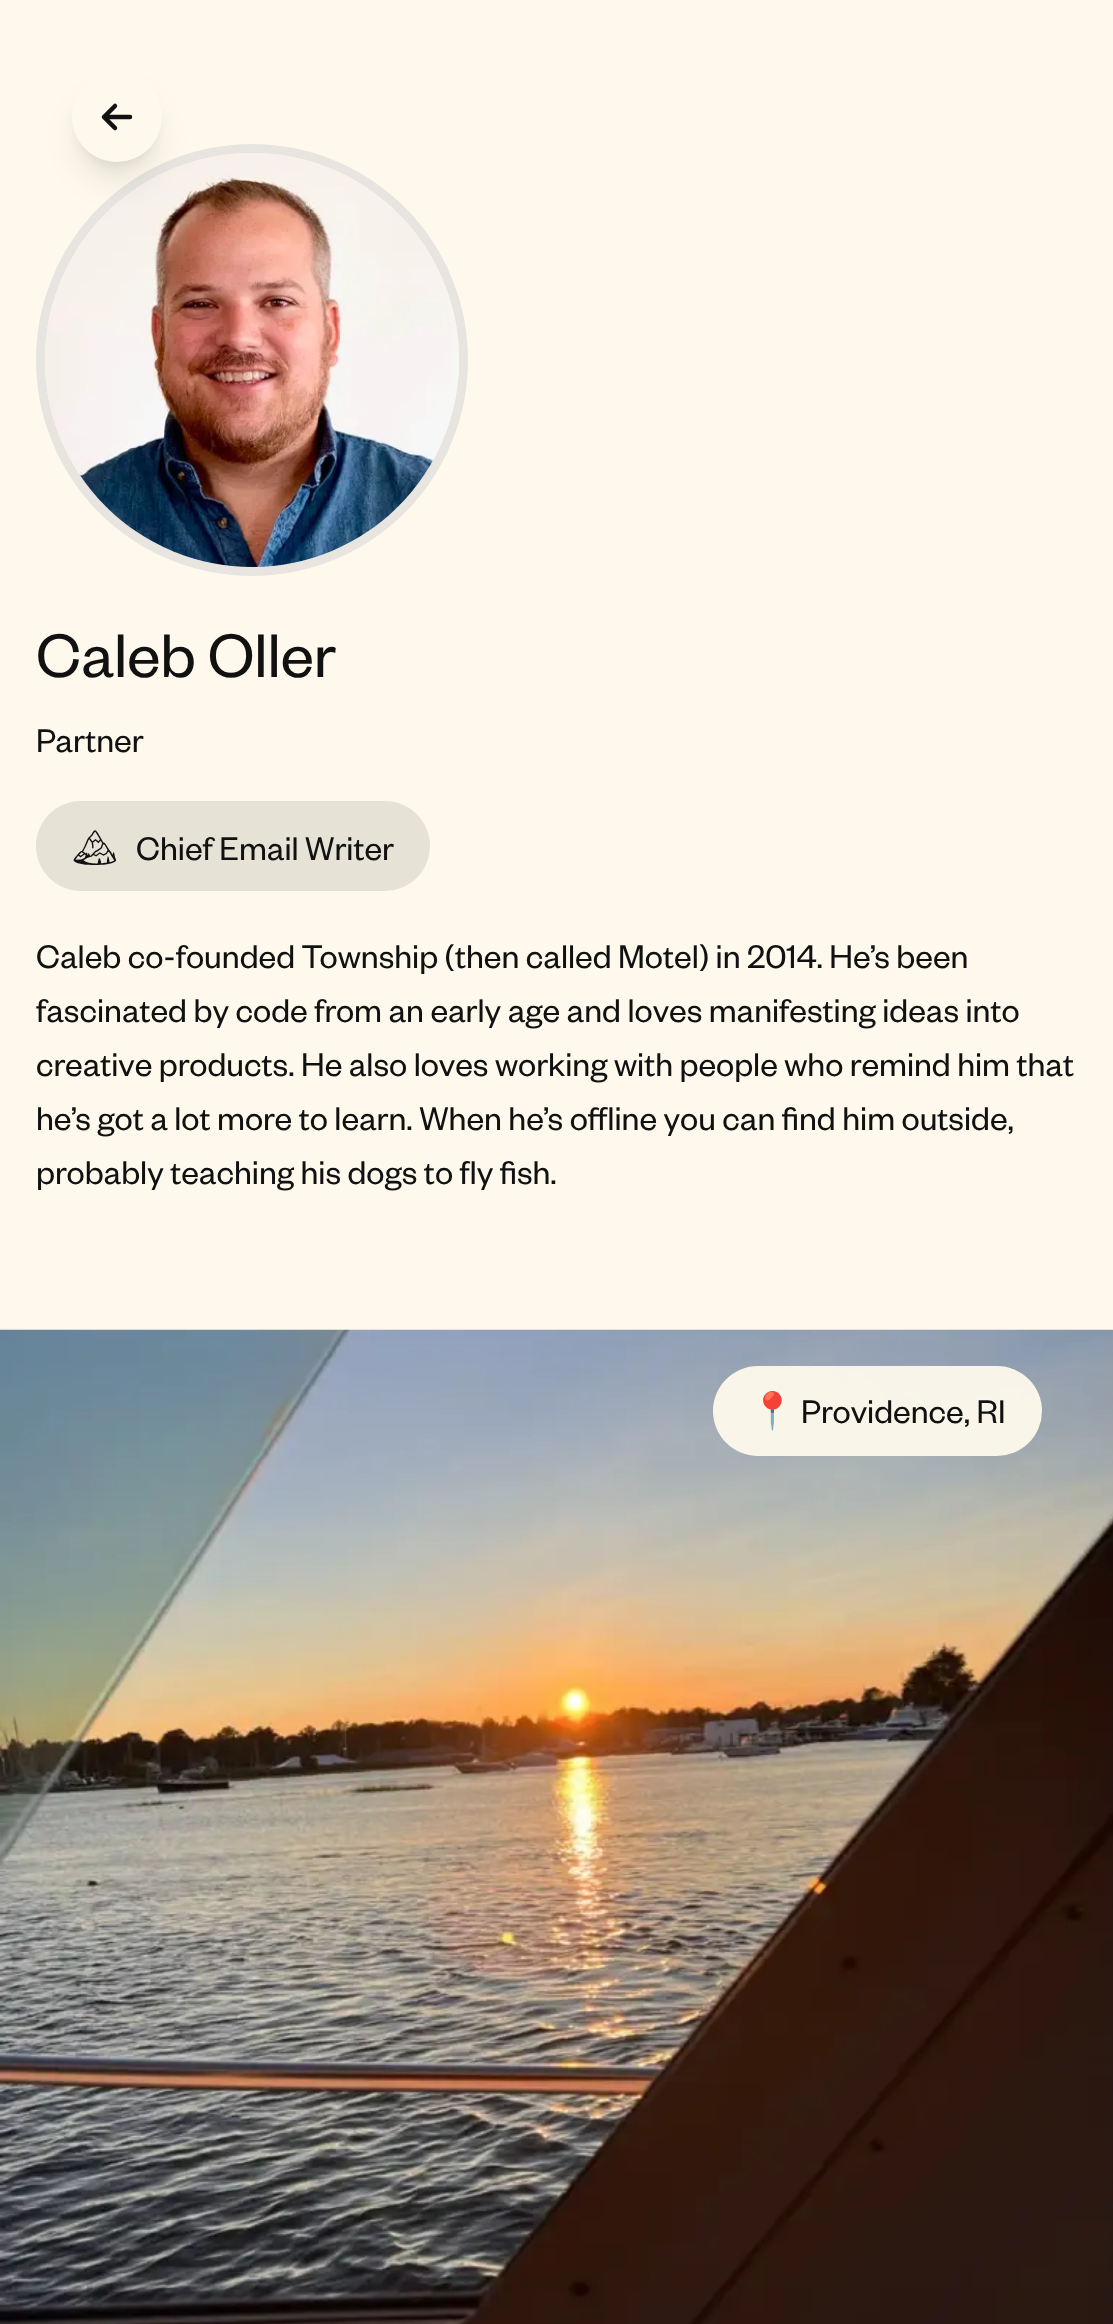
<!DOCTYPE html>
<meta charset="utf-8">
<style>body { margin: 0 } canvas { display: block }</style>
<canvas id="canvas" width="1113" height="2324"></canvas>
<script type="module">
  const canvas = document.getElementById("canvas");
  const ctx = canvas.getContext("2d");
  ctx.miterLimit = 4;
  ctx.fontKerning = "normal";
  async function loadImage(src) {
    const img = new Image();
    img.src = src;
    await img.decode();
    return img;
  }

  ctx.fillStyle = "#fef9ec";
  ctx.fillRect(0, 0, 1113, 2324);
  ctx.beginPath();
  ctx.arc(252, 360, 211.5, 0, Math.PI * 2);
  ctx.strokeStyle = "#e8e5e0";
  ctx.lineWidth = 9;
  ctx.stroke();
  ctx.drawImage(await loadImage("img1.png"), 45, 153, 414, 414);
  ctx.fillStyle = "rgba(0, 0, 0, 0.1)";
  ctx.filter = "blur(7px)";
  ctx.beginPath();
  ctx.roundRect(81, 90, 72, 72, 36);
  ctx.fill();
  ctx.filter = "none";
  ctx.filter = "blur(17px)";
  ctx.beginPath();
  ctx.roundRect(79, 101, 76, 77, 38);
  ctx.fill();
  ctx.filter = "none";
  ctx.fillStyle = "#fef9ec";
  ctx.beginPath();
  ctx.arc(117, 117, 45, 0, Math.PI * 2);
  ctx.fill();
  ctx.beginPath();
  ctx.moveTo(130, 117);
  ctx.lineTo(104, 117);
  ctx.moveTo(104, 117);
  ctx.lineTo(115, 128);
  ctx.moveTo(104, 117);
  ctx.lineTo(115, 106);
  ctx.strokeStyle = "#111111";
  ctx.lineWidth = 4.5;
  ctx.lineCap = "round";
  ctx.lineJoin = "round";
  ctx.stroke();
  ctx.font = "67.5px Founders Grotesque";
  ctx.fillStyle = "#111111";
  ctx.fillText("Caleb Oller", 36, 677);
  ctx.font = "36px Founders Grotesque";
  ctx.fillText("Partner", 36, 752);
  ctx.fillStyle = "#e6e2d6";
  ctx.beginPath();
  ctx.roundRect(36, 801, 394, 90, 45);
  ctx.fill();
  ctx.font = "36px Noto Emoji";
  ctx.fillStyle = "#111111";
  ctx.fillText("🏔", 72, 860);
  ctx.font = "36px Founders Grotesque";
  ctx.fillText("Chief Email Writer", 136, 860);
  ctx.fillText("Caleb co-founded Township (then called Motel) in 2014. He’s been", 36, 968);
  ctx.fillText("fascinated by code from an early age and loves manifesting ideas into", 36, 1022);
  ctx.fillText("creative products. He also loves working with people who remind him that", 36, 1076);
  ctx.fillText("he’s got a lot more to learn. When he’s offline you can find him outside,", 36, 1130);
  ctx.fillText("probably teaching his dogs to fly fish.", 36, 1184);
  ctx.drawImage(await loadImage("img2.png"), 0, 1329, 1113, 995);
  ctx.fillStyle = "rgba(254, 249, 236, 0.95)";
  ctx.beginPath();
  ctx.roundRect(713, 1366, 329, 90, 45);
  ctx.fill();
  ctx.font = "36px Noto Color Emoji";
  ctx.fillStyle = "#111111";
  ctx.fillText("📍", 750, 1423);
  ctx.font = "36px Founders Grotesque";
  ctx.fillText("Providence, RI", 801, 1423);
</script>
